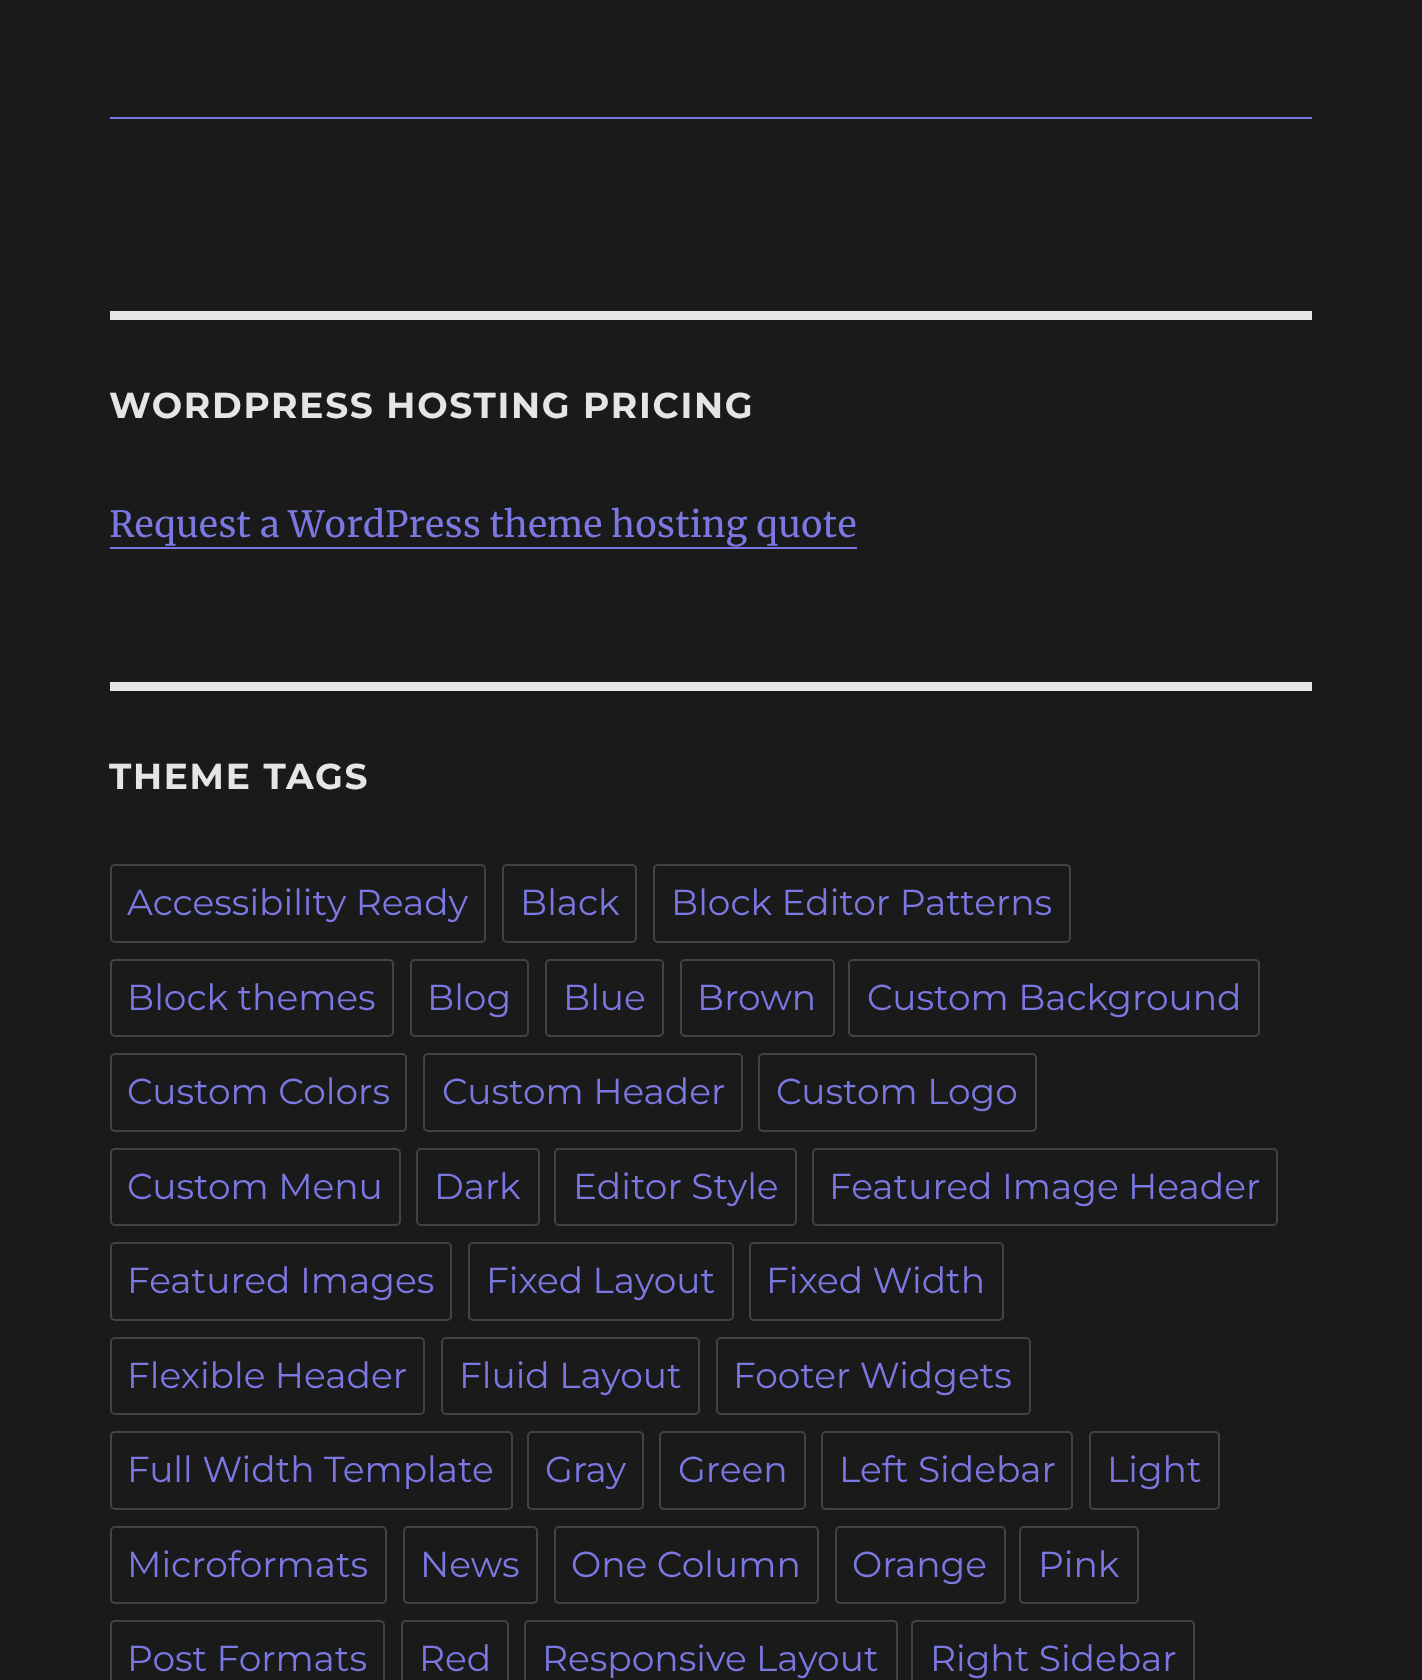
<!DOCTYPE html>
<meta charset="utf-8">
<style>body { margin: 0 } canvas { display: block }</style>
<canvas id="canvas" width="1422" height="1680"></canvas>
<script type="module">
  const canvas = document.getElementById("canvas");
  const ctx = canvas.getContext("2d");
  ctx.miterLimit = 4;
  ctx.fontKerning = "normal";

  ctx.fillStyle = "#1a1a1a";
  ctx.fillRect(0, 0, 1422, 1680);
  ctx.fillStyle = "#7b78e2";
  ctx.beginPath();
  ctx.moveTo(110, -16);
  ctx.lineTo(110, 119);
  ctx.lineTo(1312, 119);
  ctx.lineTo(1312, -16);
  ctx.lineTo(1312, 117);
  ctx.lineTo(110, 117);
  ctx.closePath();
  ctx.fill();
  ctx.fillStyle = "#e5e5e5";
  ctx.fillRect(110, 311, 1202, 9);
  ctx.letterSpacing = "1.7px";
  ctx.font = "100 36px Montserrat";
  ctx.fillText("WORDPRESS HOSTING PRICING", 109, 418);
  ctx.letterSpacing = "0px";
  ctx.font = "36px Merriweather";
  ctx.fillStyle = "#7b78e2";
  ctx.fillText("Request a WordPress theme hosting quote", 109, 537);
  ctx.beginPath();
  ctx.moveTo(110, 504);
  ctx.lineTo(110, 549);
  ctx.lineTo(857, 549);
  ctx.lineTo(857, 547);
  ctx.lineTo(110, 547);
  ctx.closePath();
  ctx.fill();
  ctx.fillStyle = "#e5e5e5";
  ctx.fillRect(110, 682, 1202, 9);
  ctx.letterSpacing = "1.7px";
  ctx.font = "100 36px Montserrat";
  ctx.fillText("THEME TAGS", 109, 789);
  ctx.beginPath();
  ctx.roundRect(111, 865, 374, 77, 4);
  ctx.strokeStyle = "#434343";
  ctx.lineWidth = 2;
  ctx.stroke();
  ctx.letterSpacing = "0px";
  ctx.font = "100 36px 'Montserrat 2'";
  ctx.fillStyle = "#7b78e2";
  ctx.fillText("Accessibility Ready", 127, 915);
  ctx.beginPath();
  ctx.roundRect(503, 865, 133, 77, 4);
  ctx.stroke();
  ctx.fillText("Black", 520, 915);
  ctx.beginPath();
  ctx.roundRect(654, 865, 416, 77, 4);
  ctx.stroke();
  ctx.fillText("Block Editor Patterns", 671, 915);
  ctx.beginPath();
  ctx.roundRect(111, 960, 282, 76, 4);
  ctx.stroke();
  ctx.fillText("Block themes", 127, 1010);
  ctx.beginPath();
  ctx.roundRect(411, 960, 117, 76, 4);
  ctx.stroke();
  ctx.fillText("Blog", 427, 1010);
  ctx.beginPath();
  ctx.roundRect(546, 960, 117, 76, 4);
  ctx.stroke();
  ctx.fillText("Blue", 563, 1010);
  ctx.beginPath();
  ctx.roundRect(681, 960, 153, 76, 4);
  ctx.stroke();
  ctx.fillText("Brown", 697, 1010);
  ctx.beginPath();
  ctx.roundRect(849, 960, 410, 76, 4);
  ctx.stroke();
  ctx.fillText("Custom Background", 867, 1010);
  ctx.beginPath();
  ctx.roundRect(111, 1054, 295, 77, 4);
  ctx.stroke();
  ctx.fillText("Custom Colors", 127, 1104);
  ctx.beginPath();
  ctx.roundRect(424, 1054, 318, 77, 4);
  ctx.stroke();
  ctx.fillText("Custom Header", 442, 1104);
  ctx.beginPath();
  ctx.roundRect(759, 1054, 277, 77, 4);
  ctx.stroke();
  ctx.fillText("Custom Logo", 776, 1104);
  ctx.beginPath();
  ctx.roundRect(111, 1149, 289, 76, 4);
  ctx.stroke();
  ctx.fillText("Custom Menu", 127, 1199);
  ctx.beginPath();
  ctx.roundRect(417, 1149, 122, 76, 4);
  ctx.stroke();
  ctx.fillText("Dark", 434, 1199);
  ctx.beginPath();
  ctx.roundRect(555, 1149, 241, 76, 4);
  ctx.stroke();
  ctx.fillText("Editor Style", 573, 1199);
  ctx.beginPath();
  ctx.roundRect(813, 1149, 464, 76, 4);
  ctx.stroke();
  ctx.fillText("Featured Image Header", 829, 1199);
  ctx.beginPath();
  ctx.roundRect(111, 1243, 340, 77, 4);
  ctx.stroke();
  ctx.fillText("Featured Images", 127, 1293);
  ctx.beginPath();
  ctx.roundRect(469, 1243, 264, 77, 4);
  ctx.stroke();
  ctx.fillText("Fixed Layout", 486, 1293);
  ctx.beginPath();
  ctx.roundRect(750, 1243, 253, 77, 4);
  ctx.stroke();
  ctx.fillText("Fixed Width", 766, 1293);
  ctx.beginPath();
  ctx.roundRect(111, 1338, 313, 76, 4);
  ctx.stroke();
  ctx.fillText("Flexible Header", 127, 1388);
  ctx.beginPath();
  ctx.roundRect(442, 1338, 257, 76, 4);
  ctx.stroke();
  ctx.fillText("Fluid Layout", 459, 1388);
  ctx.beginPath();
  ctx.roundRect(717, 1338, 313, 76, 4);
  ctx.stroke();
  ctx.fillText("Footer Widgets", 733, 1388);
  ctx.beginPath();
  ctx.roundRect(111, 1432, 401, 77, 4);
  ctx.stroke();
  ctx.fillText("Full Width Template", 127, 1482);
  ctx.beginPath();
  ctx.roundRect(528, 1432, 115, 77, 4);
  ctx.stroke();
  ctx.fillText("Gray", 545, 1482);
  ctx.beginPath();
  ctx.roundRect(660, 1432, 145, 77, 4);
  ctx.stroke();
  ctx.fillText("Green", 678, 1482);
  ctx.beginPath();
  ctx.roundRect(822, 1432, 250, 77, 4);
  ctx.stroke();
  ctx.fillText("Left Sidebar", 839, 1482);
  ctx.beginPath();
  ctx.roundRect(1090, 1432, 129, 77, 4);
  ctx.stroke();
  ctx.fillText("Light", 1107, 1482);
  ctx.beginPath();
  ctx.roundRect(111, 1527, 275, 76, 4);
  ctx.stroke();
  ctx.fillText("Microformats", 127, 1577);
  ctx.beginPath();
  ctx.roundRect(404, 1527, 133, 76, 4);
  ctx.stroke();
  ctx.fillText("News", 420, 1577);
  ctx.beginPath();
  ctx.roundRect(555, 1527, 263, 76, 4);
  ctx.stroke();
  ctx.fillText("One Column", 571, 1577);
  ctx.beginPath();
  ctx.roundRect(836, 1527, 169, 76, 4);
  ctx.stroke();
  ctx.fillText("Orange", 852, 1577);
  ctx.beginPath();
  ctx.roundRect(1020, 1527, 118, 76, 4);
  ctx.stroke();
  ctx.fillText("Pink", 1038, 1577);
  ctx.beginPath();
  ctx.roundRect(111, 1621, 273, 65, 4);
  ctx.stroke();
  ctx.fillText("Post Formats", 127, 1671);
  ctx.beginPath();
  ctx.roundRect(402, 1621, 106, 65, 4);
  ctx.stroke();
  ctx.fillText("Red", 419, 1671);
  ctx.beginPath();
  ctx.roundRect(525, 1621, 372, 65, 4);
  ctx.stroke();
  ctx.fillText("Responsive Layout", 542, 1671);
  ctx.beginPath();
  ctx.roundRect(912, 1621, 282, 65, 4);
  ctx.stroke();
  ctx.fillText("Right Sidebar", 930, 1671);
</script>
